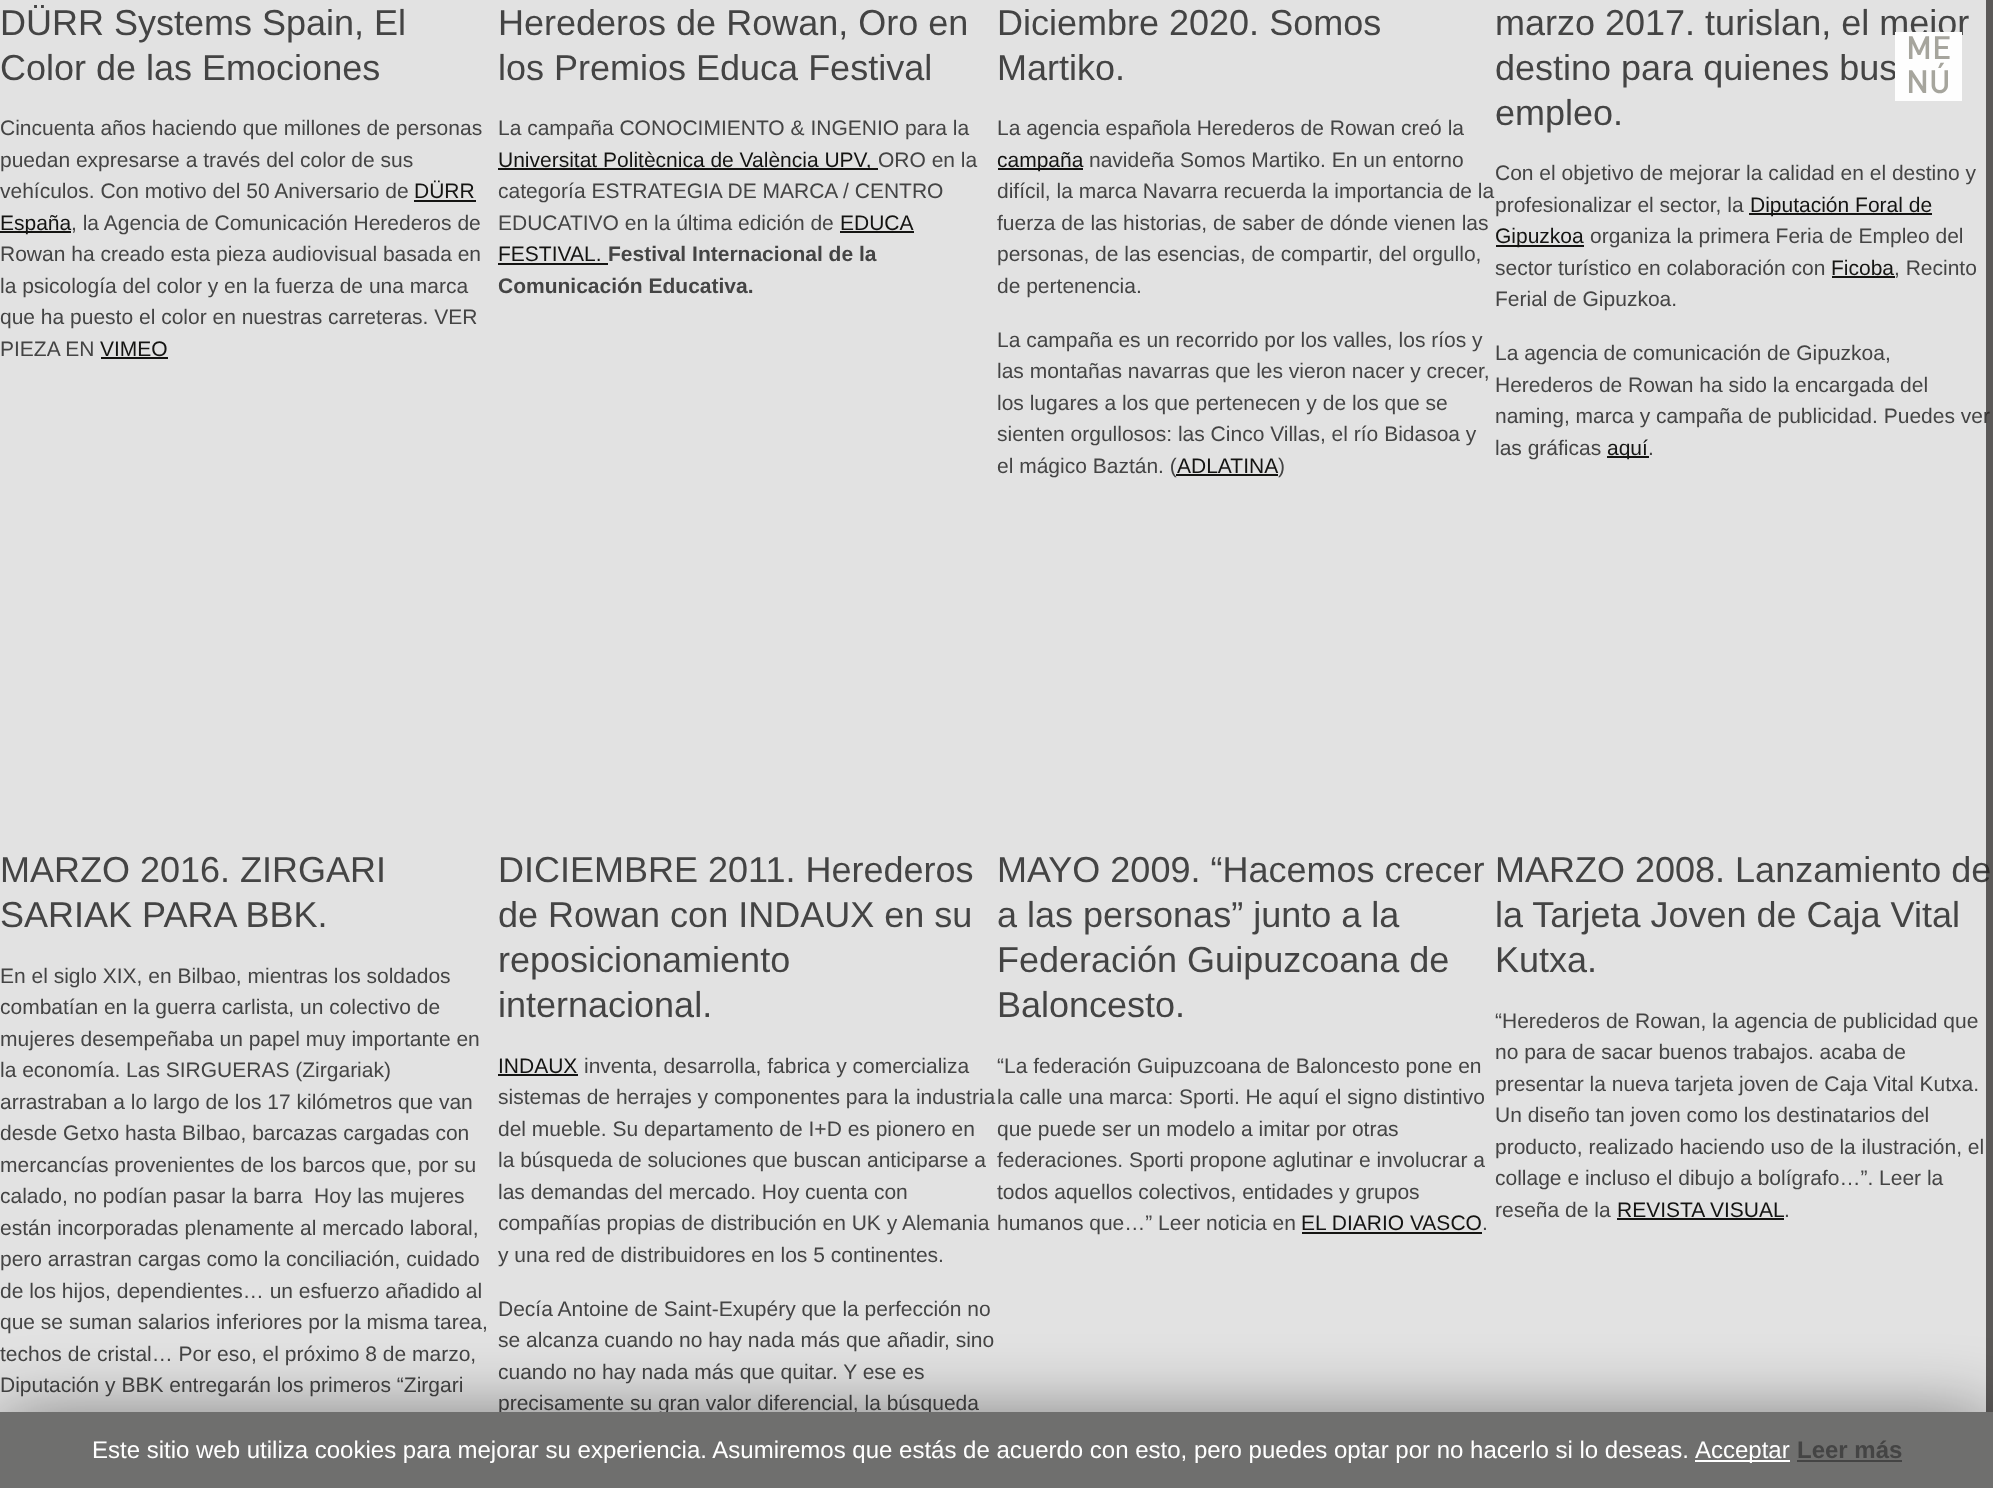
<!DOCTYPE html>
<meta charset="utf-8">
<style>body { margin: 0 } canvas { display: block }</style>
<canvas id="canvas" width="1993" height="1488"></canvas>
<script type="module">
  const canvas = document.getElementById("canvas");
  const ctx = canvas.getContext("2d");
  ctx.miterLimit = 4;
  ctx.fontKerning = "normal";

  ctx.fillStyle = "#e2e2e2";
  ctx.fillRect(0, 0, 1993, 1488);
  ctx.font = "36px Liberation Sans";
  ctx.fillStyle = "#444444";
  ctx.fillText("DÜRR Systems Spain, El", 0, 35);
  ctx.fillText("Color de las Emociones", 0, 80);
  ctx.font = "21px Liberation Sans";
  ctx.fillText("Cincuenta años haciendo que millones de personas", 0, 135);
  ctx.fillText("puedan expresarse a través del color de sus", 0, 167);
  ctx.fillText("vehículos. Con motivo del 50 Aniversario de", 0, 198);
  ctx.fillStyle = "#141412";
  ctx.fillText("DÜRR", 414, 198);
  ctx.fillRect(414, 200, 62, 2);
  ctx.fillRect(0, 231, 71, 2);
  ctx.fillText("España", 0, 230);
  ctx.fillStyle = "#444444";
  ctx.fillText(", la Agencia de Comunicación Herederos de", 71, 230);
  ctx.fillText("Rowan ha creado esta pieza audiovisual basada en", 0, 261);
  ctx.fillText("la psicología del color y en la fuerza de una marca", 0, 293);
  ctx.fillText("que ha puesto el color en nuestras carreteras. VER", 0, 324);
  ctx.fillText("PIEZA EN", 0, 356);
  ctx.fillStyle = "#141412";
  ctx.fillText("VIMEO", 100, 356);
  ctx.fillRect(101, 357, 67, 2);
  ctx.font = "36px Liberation Sans";
  ctx.fillStyle = "#444444";
  ctx.fillText("Herederos de Rowan, Oro en", 498, 35);
  ctx.fillText("los Premios Educa Festival", 498, 80);
  ctx.font = "21px Liberation Sans";
  ctx.fillText("La campaña CONOCIMIENTO & INGENIO para la", 498, 135);
  ctx.fillStyle = "#141412";
  ctx.fillRect(498, 168, 380, 2);
  ctx.fillText("Universitat Politècnica de València UPV,", 498, 167);
  ctx.fillStyle = "#444444";
  ctx.fillText("ORO en la", 878, 167);
  ctx.fillText("categoría ESTRATEGIA DE MARCA / CENTRO", 498, 198);
  ctx.fillText("EDUCATIVO en la última edición de", 498, 230);
  ctx.fillStyle = "#141412";
  ctx.fillText("EDUCA", 840, 230);
  ctx.fillRect(840, 231, 74, 2);
  ctx.fillText("FESTIVAL.", 498, 261);
  ctx.fillRect(498, 263, 110, 2);
  ctx.font = "bold 21px Liberation Sans";
  ctx.fillStyle = "#444444";
  ctx.fillText("Festival Internacional de la", 608, 261);
  ctx.fillText("Comunicación Educativa.", 498, 293);
  ctx.font = "36px Liberation Sans";
  ctx.fillText("Diciembre 2020. Somos", 997, 35);
  ctx.fillText("Martiko.", 997, 80);
  ctx.font = "21px Liberation Sans";
  ctx.fillText("La agencia española Herederos de Rowan creó la", 997, 135);
  ctx.fillStyle = "#141412";
  ctx.fillRect(998, 168, 85, 2);
  ctx.fillText("campaña", 997, 167);
  ctx.fillStyle = "#444444";
  ctx.fillText("navideña Somos Martiko. En un entorno", 1089, 167);
  ctx.fillText("difícil, la marca Navarra recuerda la importancia de la", 997, 198);
  ctx.fillText("fuerza de las historias, de saber de dónde vienen las", 997, 230);
  ctx.fillText("personas, de las esencias, de compartir, del orgullo,", 997, 261);
  ctx.fillText("de pertenencia.", 997, 293);
  ctx.fillText("La campaña es un recorrido por los valles, los ríos y", 997, 347);
  ctx.fillText("las montañas navarras que les vieron nacer y crecer,", 997, 378);
  ctx.fillText("los lugares a los que pertenecen y de los que se", 997, 410);
  ctx.fillText("sienten orgullosos: las Cinco Villas, el río Bidasoa y", 997, 441);
  ctx.fillText("el mágico Baztán. (", 997, 473);
  ctx.fillStyle = "#141412";
  ctx.fillText("ADLATINA", 1177, 473);
  ctx.fillRect(1176, 474, 102, 2);
  ctx.fillStyle = "#444444";
  ctx.fillText(")", 1278, 473);
  ctx.font = "36px Liberation Sans";
  ctx.fillText("marzo 2017. turislan, el mejor", 1495, 35);
  ctx.fillText("destino para quienes bus", 1495, 80);
  ctx.fillText("empleo.", 1495, 125);
  ctx.font = "21px Liberation Sans";
  ctx.fillText("Con el objetivo de mejorar la calidad en el destino y", 1495, 180);
  ctx.fillText("profesionalizar el sector, la", 1495, 212);
  ctx.fillStyle = "#141412";
  ctx.fillRect(1749, 213, 183, 2);
  ctx.fillText("Diputación Foral de", 1750, 212);
  ctx.fillRect(1496, 245, 88, 2);
  ctx.fillText("Gipuzkoa", 1495, 243);
  ctx.fillStyle = "#444444";
  ctx.fillText("organiza la primera Feria de Empleo del", 1590, 243);
  ctx.fillText("sector turístico en colaboración con", 1495, 275);
  ctx.fillStyle = "#141412";
  ctx.fillText("Ficoba", 1831, 275);
  ctx.fillRect(1832, 276, 63, 2);
  ctx.fillStyle = "#444444";
  ctx.fillText(", Recinto", 1894, 275);
  ctx.fillText("Ferial de Gipuzkoa.", 1495, 306);
  ctx.fillText("La agencia de comunicación de Gipuzkoa,", 1495, 360);
  ctx.fillText("Herederos de Rowan ha sido la encargada del", 1495, 392);
  ctx.fillText("naming, marca y campaña de publicidad. Puedes ver", 1495, 423);
  ctx.fillText("las gráficas", 1495, 455);
  ctx.fillStyle = "#141412";
  ctx.fillRect(1607, 456, 42, 2);
  ctx.fillText("aquí", 1607, 455);
  ctx.fillStyle = "#444444";
  ctx.fillText(".", 1648, 455);
  ctx.font = "36px Liberation Sans";
  ctx.fillText("MARZO 2016. ZIRGARI", 0, 882);
  ctx.fillText("SARIAK PARA BBK.", 0, 927);
  ctx.font = "21px Liberation Sans";
  ctx.fillText("En el siglo XIX, en Bilbao, mientras los soldados", 0, 983);
  ctx.fillText("combatían en la guerra carlista, un colectivo de", 0, 1014);
  ctx.fillText("mujeres desempeñaba un papel muy importante en", 0, 1046);
  ctx.fillText("la economía. Las SIRGUERAS (Zirgariak)", 0, 1077);
  ctx.fillText("arrastraban a lo largo de los 17 kilómetros que van", 0, 1109);
  ctx.fillText("desde Getxo hasta Bilbao, barcazas cargadas con", 0, 1140);
  ctx.fillText("mercancías provenientes de los barcos que, por su", 0, 1172);
  ctx.fillText("calado, no podían pasar la barra  Hoy las mujeres", 0, 1203);
  ctx.fillText("están incorporadas plenamente al mercado laboral,", 0, 1235);
  ctx.fillText("pero arrastran cargas como la conciliación, cuidado", 0, 1266);
  ctx.fillText("de los hijos, dependientes… un esfuerzo añadido al", 0, 1298);
  ctx.fillText("que se suman salarios inferiores por la misma tarea,", 0, 1329);
  ctx.fillText("techos de cristal… Por eso, el próximo 8 de marzo,", 0, 1361);
  ctx.fillText("Diputación y BBK entregarán los primeros “Zirgari", 0, 1392);
  ctx.font = "36px Liberation Sans";
  ctx.fillText("DICIEMBRE 2011. Herederos", 498, 882);
  ctx.fillText("de Rowan con INDAUX en su", 498, 927);
  ctx.fillText("reposicionamiento", 498, 972);
  ctx.fillText("internacional.", 498, 1017);
  ctx.font = "21px Liberation Sans";
  ctx.fillStyle = "#141412";
  ctx.fillText("INDAUX", 498, 1073);
  ctx.fillRect(498, 1074, 80, 2);
  ctx.fillStyle = "#444444";
  ctx.fillText("inventa, desarrolla, fabrica y comercializa", 584, 1073);
  ctx.fillText("sistemas de herrajes y componentes para la industria", 498, 1104);
  ctx.fillText("del mueble. Su departamento de I+D es pionero en", 498, 1136);
  ctx.fillText("la búsqueda de soluciones que buscan anticiparse a", 498, 1167);
  ctx.fillText("las demandas del mercado. Hoy cuenta con", 498, 1199);
  ctx.fillText("compañías propias de distribución en UK y Alemania", 498, 1230);
  ctx.fillText("y una red de distribuidores en los 5 continentes.", 498, 1262);
  ctx.fillText("Decía Antoine de Saint-Exupéry que la perfección no", 498, 1316);
  ctx.fillText("se alcanza cuando no hay nada más que añadir, sino", 498, 1347);
  ctx.fillText("cuando no hay nada más que quitar. Y ese es", 498, 1379);
  ctx.fillText("precisamente su gran valor diferencial, la búsqueda", 498, 1410);
  ctx.font = "36px Liberation Sans";
  ctx.fillText("MAYO 2009. “Hacemos crecer", 997, 882);
  ctx.fillText("a las personas” junto a la", 997, 927);
  ctx.fillText("Federación Guipuzcoana de", 997, 972);
  ctx.fillText("Baloncesto.", 997, 1017);
  ctx.font = "21px Liberation Sans";
  ctx.fillText("“La federación Guipuzcoana de Baloncesto pone en", 997, 1073);
  ctx.fillText("la calle una marca: Sporti. He aquí el signo distintivo", 997, 1104);
  ctx.fillText("que puede ser un modelo a imitar por otras", 997, 1136);
  ctx.fillText("federaciones. Sporti propone aglutinar e involucrar a", 997, 1167);
  ctx.fillText("todos aquellos colectivos, entidades y grupos", 997, 1199);
  ctx.fillText("humanos que…” Leer noticia en", 997, 1230);
  ctx.fillStyle = "#141412";
  ctx.fillText("EL DIARIO VASCO", 1301, 1230);
  ctx.fillRect(1302, 1232, 180, 2);
  ctx.fillStyle = "#444444";
  ctx.fillText(".", 1482, 1230);
  ctx.font = "36px Liberation Sans";
  ctx.fillText("MARZO 2008. Lanzamiento de", 1495, 882);
  ctx.fillText("la Tarjeta Joven de Caja Vital", 1495, 927);
  ctx.fillText("Kutxa.", 1495, 972);
  ctx.font = "21px Liberation Sans";
  ctx.fillText("“Herederos de Rowan, la agencia de publicidad que", 1495, 1028);
  ctx.fillText("no para de sacar buenos trabajos. acaba de", 1495, 1059);
  ctx.fillText("presentar la nueva tarjeta joven de Caja Vital Kutxa.", 1495, 1091);
  ctx.fillText("Un diseño tan joven como los destinatarios del", 1495, 1122);
  ctx.fillText("producto, realizado haciendo uso de la ilustración, el", 1495, 1154);
  ctx.fillText("collage e incluso el dibujo a bolígrafo…”. Leer la", 1495, 1185);
  ctx.fillText("reseña de la", 1495, 1217);
  ctx.fillStyle = "#141412";
  ctx.fillText("REVISTA VISUAL", 1617, 1217);
  ctx.fillRect(1617, 1218, 167, 2);
  ctx.fillStyle = "#444444";
  ctx.fillText(".", 1784, 1217);
  ctx.fillStyle = "#fefefe";
  ctx.fillRect(1895, 32, 67, 69);
  ctx.font = "500 32px DIN";
  ctx.fillStyle = "#a6a59d";
  ctx.fillText("ME", 1906, 59);
  ctx.fillText("NÚ", 1906, 93);
  ctx.fillStyle = "rgba(34, 32, 30, 0.7)";
  ctx.fillRect(1986, 0, 7, 1412);
  ctx.fillStyle = "rgba(0, 0, 0, 0.5)";
  ctx.filter = "blur(37.5px)";
  ctx.beginPath();
  ctx.rect(0, 1419, 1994, 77);
  ctx.fill();
  ctx.filter = "none";
  ctx.fillStyle = "#6f6f6e";
  ctx.fillRect(0, 1412, 1993, 76);
  ctx.font = "24px Liberation Sans";
  ctx.fillStyle = "#ffffff";
  ctx.fillText("Este sitio web utiliza cookies para mejorar su experiencia. Asumiremos que estás de acuerdo con esto, pero puedes optar por no hacerlo si lo deseas.", 92, 1458);
  ctx.fillRect(1695, 1460, 95, 2);
  ctx.fillText("Acceptar", 1695, 1458);
  ctx.font = "bold 24px Liberation Sans";
  ctx.fillStyle = "#444444";
  ctx.fillText("Leer más", 1797, 1458);
  ctx.fillRect(1797, 1460, 105, 2);
</script>
